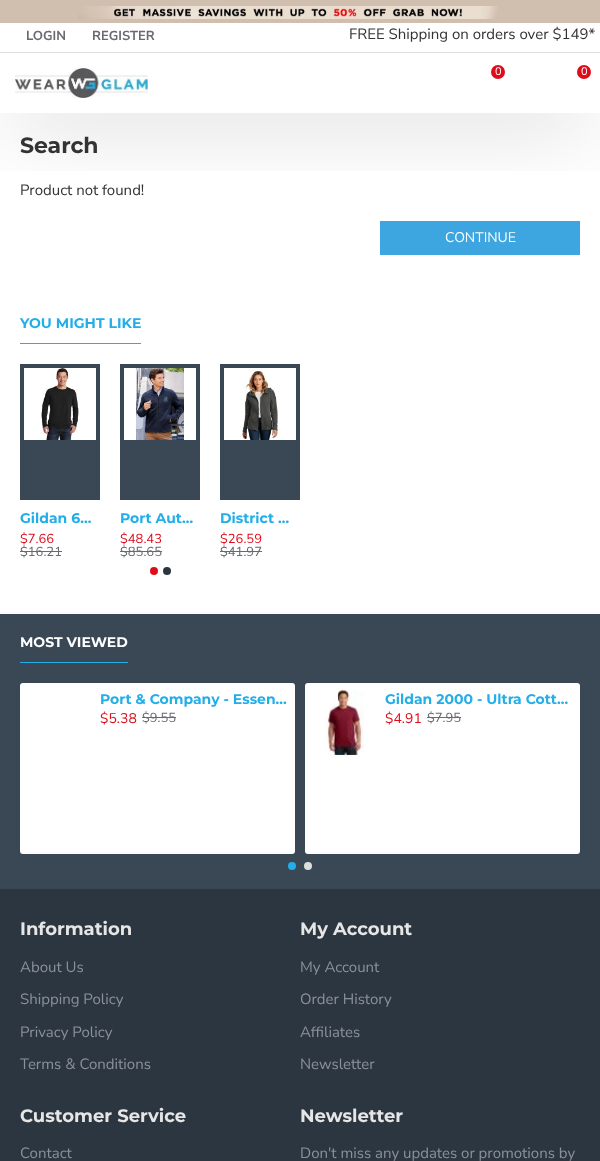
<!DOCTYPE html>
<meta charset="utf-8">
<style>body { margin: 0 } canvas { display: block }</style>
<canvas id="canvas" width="600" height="1161"></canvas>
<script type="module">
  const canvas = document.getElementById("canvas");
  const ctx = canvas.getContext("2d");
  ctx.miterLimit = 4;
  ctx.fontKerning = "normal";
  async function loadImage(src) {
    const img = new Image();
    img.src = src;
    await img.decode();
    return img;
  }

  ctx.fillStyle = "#ffffff";
  ctx.fillRect(0, 0, 600, 1161);
  ctx.fillStyle = "#d0bfaf";
  ctx.fillRect(0, 0, 600, 23);
  ctx.drawImage(await loadImage("img1.png"), 78, 6, 420, 13);
  ctx.fillStyle = "#3da5e0";
  ctx.fillRect(380, 221, 200, 34);
  ctx.save();
  ctx.beginPath();
  ctx.rect(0, 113, 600, 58);
  ctx.clip();
  ctx.fillStyle = "rgba(0, 0, 0, 0.2)";
  ctx.filter = "blur(45px)";
  ctx.beginPath();
  ctx.rect(10, 78, 580, 40);
  ctx.fill();
  ctx.filter = "none";
  ctx.restore();
  ctx.fillStyle = "#ffffff";
  ctx.fillRect(0, 23, 600, 29);
  ctx.fillStyle = "#dddddd";
  ctx.fillRect(0, 52, 600, 1);
  ctx.font = "bold 13px Nunito Sans";
  ctx.fillStyle = "#696973";
  ctx.fillText("LOGIN", 26, 40);
  ctx.fillText("REGISTER", 92, 40);
  ctx.font = "15px Nunito Sans";
  ctx.fillStyle = "#333333";
  ctx.fillText("FREE Shipping on orders over $149*", 349, 39);
  ctx.drawImage(await loadImage("img2.png"), 15, 68, 133, 30);
  ctx.fillStyle = "#dd0e1c";
  ctx.beginPath();
  ctx.arc(498, 72, 8, 0, Math.PI * 2);
  ctx.fill();
  ctx.strokeStyle = "#ffffff";
  ctx.lineWidth = 2;
  ctx.stroke();
  ctx.font = "11px Nunito Sans";
  ctx.fillStyle = "#ffffff";
  ctx.fillText("0", 495, 75);
  ctx.fillStyle = "#dd0e1c";
  ctx.beginPath();
  ctx.arc(584, 72, 8, 0, Math.PI * 2);
  ctx.fill();
  ctx.stroke();
  ctx.fillStyle = "#ffffff";
  ctx.fillText("0", 581, 75);
  ctx.font = "bold 22px Montserrat";
  ctx.fillStyle = "#333333";
  ctx.fillText("Search", 20, 153);
  ctx.font = "15px Nunito Sans";
  ctx.fillText("Product not found!", 20, 195);
  ctx.font = "14px Nunito Sans";
  ctx.fillStyle = "#ffffff";
  ctx.fillText("CONTINUE", 445, 242);
  ctx.fillStyle = "#22aee9";
  ctx.fillRect(20, 343, 121, 1);
  ctx.font = "bold 14px Montserrat";
  ctx.fillText("YOU MIGHT LIKE", 20, 328);
  ctx.fillStyle = "#3a4754";
  ctx.fillRect(20, 364, 80, 4);
  ctx.fillRect(96, 364, 4, 76);
  ctx.fillRect(20, 364, 4, 76);
  ctx.drawImage(await loadImage("img3.png"), 41, 368, 38, 72);
  ctx.fillRect(20, 440, 80, 60);
  ctx.fillStyle = "#22aee9";
  ctx.fillText("Gildan 6…", 20, 523);
  ctx.font = "13px Nunito Sans";
  ctx.fillStyle = "#dd0e1c";
  ctx.fillText("$7.66", 20, 543);
  ctx.fillStyle = "#696973";
  ctx.fillText("$16.21", 20, 556);
  ctx.fillRect(20, 551, 42, 1);
  ctx.fillStyle = "#3a4754";
  ctx.fillRect(120, 364, 80, 4);
  ctx.fillRect(196, 364, 4, 76);
  ctx.fillRect(120, 364, 4, 76);
  ctx.drawImage(await loadImage("img4.png"), 135, 368, 50, 72);
  ctx.fillRect(120, 440, 80, 60);
  ctx.font = "bold 14px Montserrat";
  ctx.fillStyle = "#22aee9";
  ctx.fillText("Port Aut…", 120, 523);
  ctx.font = "13px Nunito Sans";
  ctx.fillStyle = "#dd0e1c";
  ctx.fillText("$48.43", 120, 543);
  ctx.fillStyle = "#696973";
  ctx.fillText("$85.65", 120, 556);
  ctx.fillRect(120, 551, 42, 1);
  ctx.fillStyle = "#3a4754";
  ctx.fillRect(220, 364, 80, 4);
  ctx.fillRect(296, 364, 4, 76);
  ctx.fillRect(220, 364, 4, 76);
  ctx.drawImage(await loadImage("img5.png"), 242, 370, 36, 70);
  ctx.fillRect(220, 440, 80, 60);
  ctx.font = "bold 14px Montserrat";
  ctx.fillStyle = "#22aee9";
  ctx.fillText("District …", 220, 523);
  ctx.font = "13px Nunito Sans";
  ctx.fillStyle = "#dd0e1c";
  ctx.fillText("$26.59", 220, 543);
  ctx.fillStyle = "#696973";
  ctx.fillText("$41.97", 220, 556);
  ctx.fillRect(220, 551, 42, 1);
  ctx.fillStyle = "#dd0e1c";
  ctx.beginPath();
  ctx.arc(154, 571, 4, 0, Math.PI * 2);
  ctx.fill();
  ctx.fillStyle = "#2c3640";
  ctx.beginPath();
  ctx.arc(167, 571, 4, 0, Math.PI * 2);
  ctx.fill();
  ctx.fillRect(0, 889, 600, 272);
  ctx.fillStyle = "#3a4754";
  ctx.fillRect(0, 614, 600, 275);
  ctx.fillStyle = "#22aee9";
  ctx.fillRect(20, 662, 108, 1);
  ctx.font = "bold 14px Montserrat";
  ctx.fillStyle = "#ffffff";
  ctx.fillText("MOST VIEWED", 20, 647);
  ctx.beginPath();
  ctx.roundRect(20, 683, 275, 171, 3);
  ctx.fill();
  ctx.fillStyle = "#22aee9";
  ctx.fillText("Port & Company - Essen…", 100, 704);
  ctx.font = "14px Nunito Sans";
  ctx.fillStyle = "#dd0e1c";
  ctx.fillText("$5.38", 100, 723);
  ctx.font = "13px Nunito Sans";
  ctx.fillStyle = "#696973";
  ctx.fillText("$9.55", 142, 722);
  ctx.fillRect(142, 717, 34, 1);
  ctx.fillStyle = "#ffffff";
  ctx.beginPath();
  ctx.roundRect(305, 683, 275, 171, 3);
  ctx.fill();
  ctx.drawImage(await loadImage("img6.png"), 325, 689, 39, 66);
  ctx.font = "bold 14px Montserrat";
  ctx.fillStyle = "#22aee9";
  ctx.fillText("Gildan 2000 - Ultra Cott…", 385, 704);
  ctx.font = "14px Nunito Sans";
  ctx.fillStyle = "#dd0e1c";
  ctx.fillText("$4.91", 385, 723);
  ctx.font = "13px Nunito Sans";
  ctx.fillStyle = "#696973";
  ctx.fillText("$7.95", 427, 722);
  ctx.fillRect(427, 717, 34, 1);
  ctx.fillStyle = "#22aee9";
  ctx.beginPath();
  ctx.arc(292, 866, 4, 0, Math.PI * 2);
  ctx.fill();
  ctx.fillStyle = "#dddddd";
  ctx.beginPath();
  ctx.arc(308, 866, 4, 0, Math.PI * 2);
  ctx.fill();
  ctx.font = "bold 18px Montserrat";
  ctx.fillStyle = "#e6e6e6";
  ctx.fillText("Information", 20, 935);
  ctx.font = "15px Nunito Sans";
  ctx.fillStyle = "#8b9198";
  ctx.fillText("About Us", 20, 972);
  ctx.fillText("Shipping Policy", 20, 1004);
  ctx.fillText("Privacy Policy", 20, 1037);
  ctx.fillText("Terms & Conditions", 20, 1069);
  ctx.font = "bold 18px Montserrat";
  ctx.fillStyle = "#e6e6e6";
  ctx.fillText("My Account", 300, 935);
  ctx.font = "15px Nunito Sans";
  ctx.fillStyle = "#8b9198";
  ctx.fillText("My Account", 300, 972);
  ctx.fillText("Order History", 300, 1004);
  ctx.fillText("Affiliates", 300, 1037);
  ctx.fillText("Newsletter", 300, 1069);
  ctx.font = "bold 18px Montserrat";
  ctx.fillStyle = "#e6e6e6";
  ctx.fillText("Customer Service", 20, 1122);
  ctx.font = "15px Nunito Sans";
  ctx.fillStyle = "#8b9198";
  ctx.fillText("Contact", 20, 1158);
  ctx.font = "bold 18px Montserrat";
  ctx.fillStyle = "#e6e6e6";
  ctx.fillText("Newsletter", 300, 1122);
  ctx.font = "15px Nunito Sans";
  ctx.fillStyle = "#8b9198";
  ctx.fillText("Don't miss any updates or promotions by", 300, 1158);
</script>
